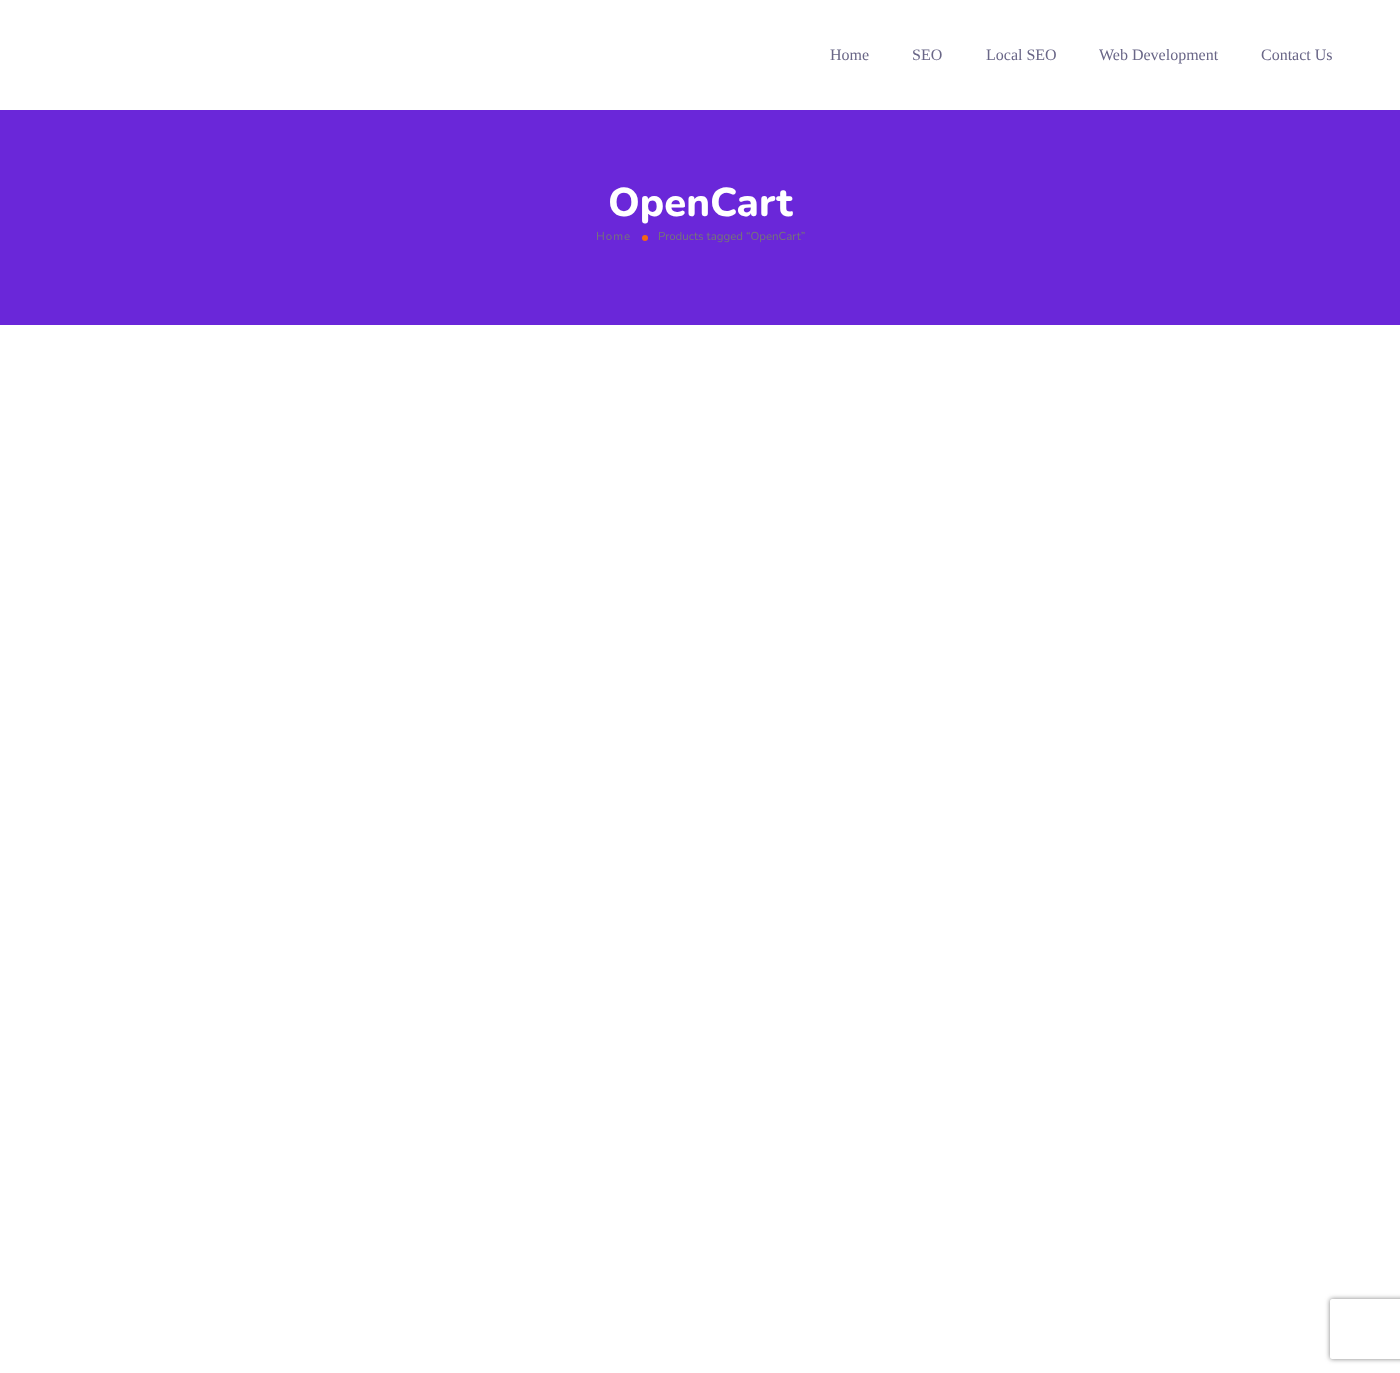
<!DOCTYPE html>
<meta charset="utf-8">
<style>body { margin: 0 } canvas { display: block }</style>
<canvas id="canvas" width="1400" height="1373"></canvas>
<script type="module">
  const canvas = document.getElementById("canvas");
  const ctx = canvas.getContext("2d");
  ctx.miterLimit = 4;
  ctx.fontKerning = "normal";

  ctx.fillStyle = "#ffffff";
  ctx.fillRect(0, 0, 1400, 1373);
  ctx.font = "16px Liberation Serif";
  ctx.fillStyle = "#696687";
  ctx.fillText("Home", 830, 60);
  ctx.fillText("SEO", 912, 60);
  ctx.fillText("Local SEO", 986, 60);
  ctx.fillText("Web Development", 1099, 60);
  ctx.fillText("Contact Us", 1261, 60);
  ctx.fillStyle = "#6a27d9";
  ctx.fillRect(0, 110, 1400, 215);
  ctx.font = "800 40px Nunito";
  ctx.fillStyle = "#ffffff";
  ctx.fillText("OpenCart", 608, 216);
  ctx.letterSpacing = "1px";
  ctx.font = "11.5px Nunito";
  ctx.fillStyle = "#767676";
  ctx.fillText("Home", 596, 240);
  ctx.fillStyle = "#f56616";
  ctx.beginPath();
  ctx.arc(645, 238, 3, 0, Math.PI * 2);
  ctx.fill();
  ctx.letterSpacing = "0px";
  ctx.fillStyle = "#767676";
  ctx.fillText("Products tagged “OpenCart”", 658, 240);
  ctx.save();
  ctx.beginPath();
  ctx.moveTo(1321, 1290);
  ctx.lineTo(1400, 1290);
  ctx.lineTo(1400, 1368);
  ctx.lineTo(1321, 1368);
  ctx.closePath();
  ctx.moveTo(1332, 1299);
  ctx.lineTo(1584, 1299);
  ctx.bezierCurveTo(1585, 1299, 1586, 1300, 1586, 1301);
  ctx.lineTo(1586, 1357);
  ctx.bezierCurveTo(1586, 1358, 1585, 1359, 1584, 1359);
  ctx.lineTo(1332, 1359);
  ctx.bezierCurveTo(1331, 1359, 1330, 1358, 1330, 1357);
  ctx.lineTo(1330, 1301);
  ctx.bezierCurveTo(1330, 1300, 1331, 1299, 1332, 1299);
  ctx.closePath();
  ctx.clip("evenodd");
  ctx.fillStyle = "#808080";
  ctx.filter = "blur(2.5px)";
  ctx.beginPath();
  ctx.roundRect(1330, 1299, 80, 60, 2);
  ctx.fill();
  ctx.filter = "none";
  ctx.restore();
</script>
